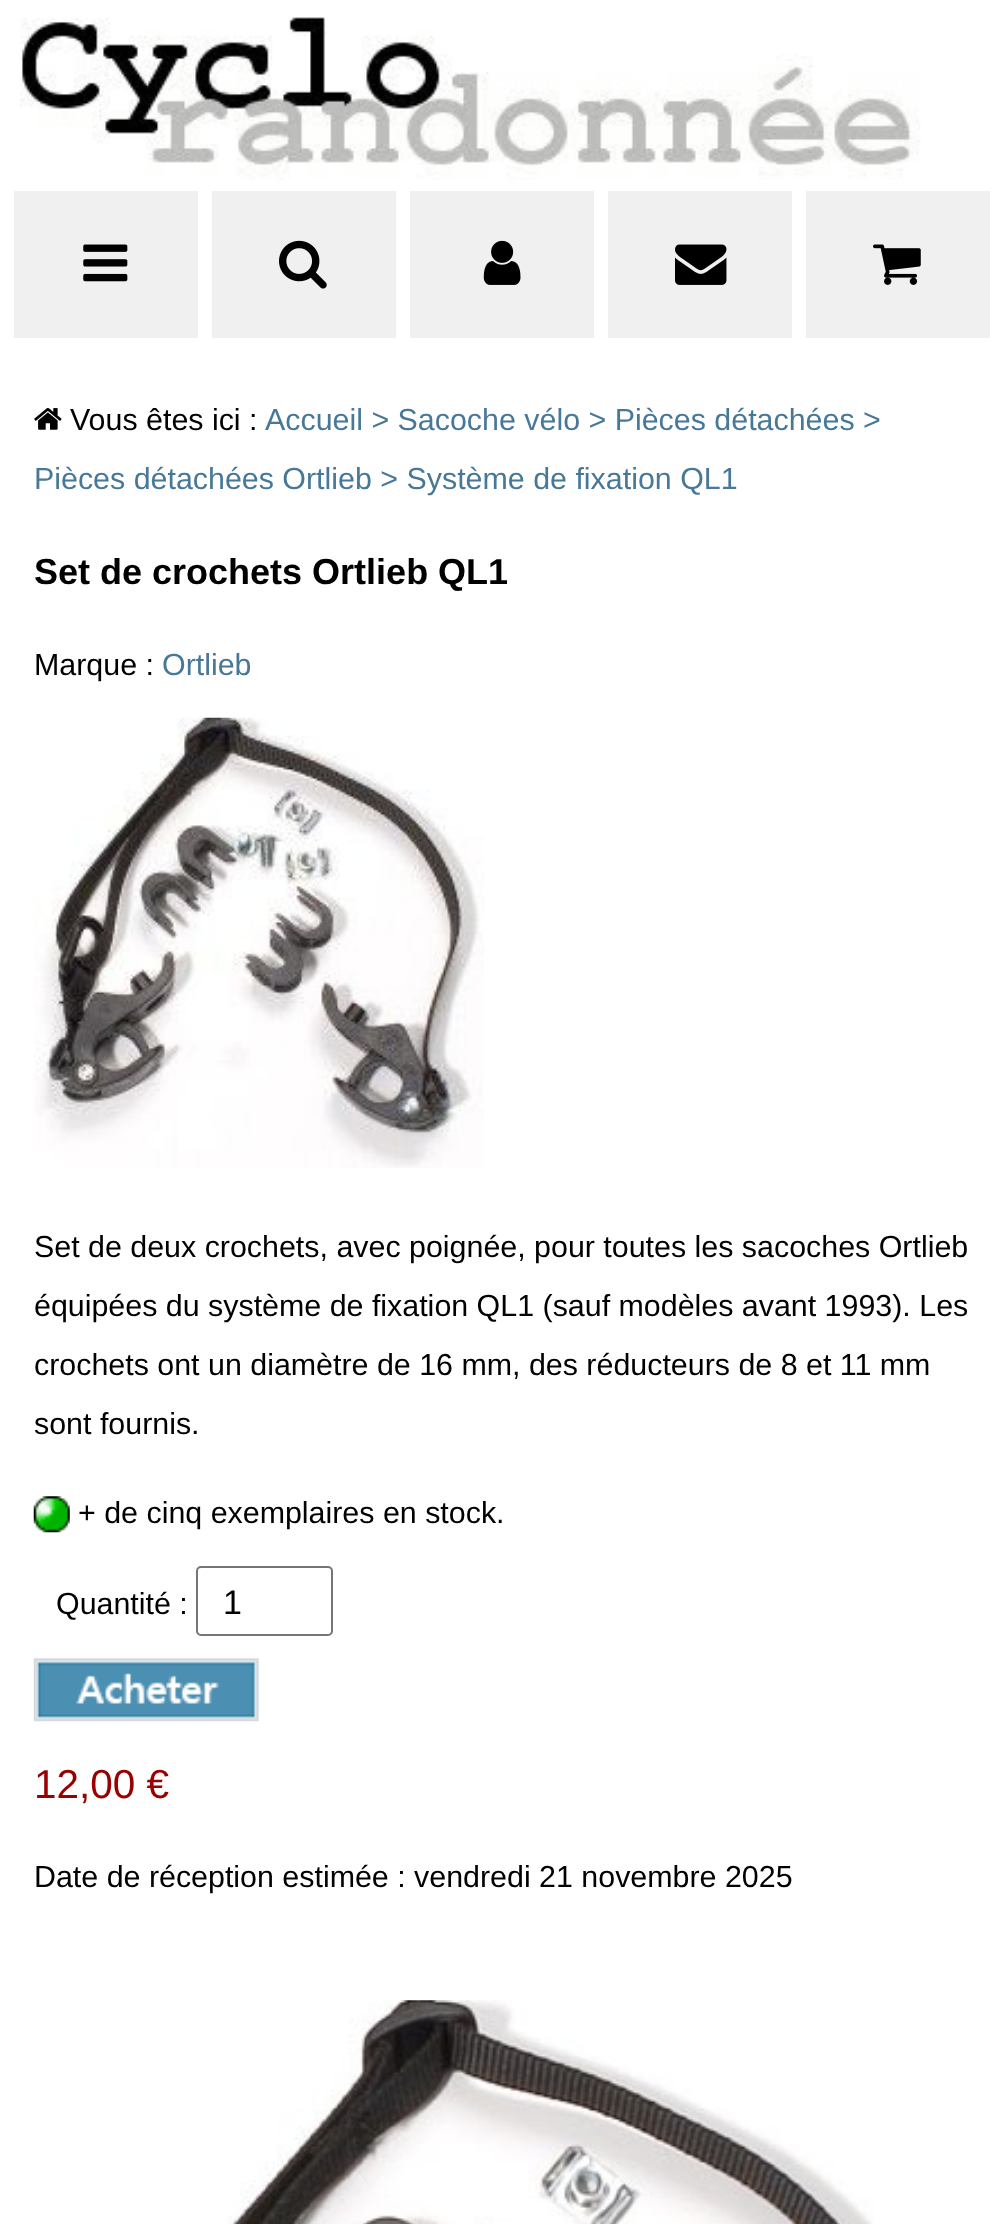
<!DOCTYPE html>
<meta charset="utf-8">
<style>body { margin: 0 } canvas { display: block }</style>
<canvas id="canvas" width="1003" height="2224"></canvas>
<script type="module">
  const canvas = document.getElementById("canvas");
  const ctx = canvas.getContext("2d");
  ctx.miterLimit = 4;
  ctx.fontKerning = "normal";
  async function loadImage(src) {
    const img = new Image();
    img.src = src;
    await img.decode();
    return img;
  }

  ctx.fillStyle = "#ffffff";
  ctx.fillRect(0, 0, 1003, 2224);
  ctx.drawImage(await loadImage("img1.png"), 20, 17, 901, 163);
  ctx.fillStyle = "#f0f0f0";
  ctx.fillRect(14, 191, 184, 147);
  ctx.drawImage(await loadImage("img2.png"), 83, 244, 45, 38);
  ctx.fillRect(212, 191, 184, 147);
  ctx.drawImage(await loadImage("img3.png"), 279, 240, 48, 49);
  ctx.fillRect(410, 191, 184, 147);
  ctx.drawImage(await loadImage("img4.png"), 483, 240, 38, 45);
  ctx.fillRect(608, 191, 184, 147);
  ctx.drawImage(await loadImage("img5.png"), 675, 244, 52, 41);
  ctx.fillRect(806, 191, 184, 147);
  ctx.drawImage(await loadImage("img6.png"), 873, 244, 48, 41);
  ctx.drawImage(await loadImage("img7.png"), 34, 408, 28, 22);
  ctx.font = "30.4px Liberation Sans";
  ctx.fillStyle = "#000000";
  ctx.fillText("Vous êtes ici :", 70, 430);
  ctx.fillStyle = "#487898";
  ctx.fillText("Accueil > Sacoche vélo > Pièces détachées >", 265, 430);
  ctx.fillText("Pièces détachées Ortlieb > Système de fixation QL1", 34, 489);
  ctx.font = "bold 36px Liberation Sans";
  ctx.fillStyle = "#000000";
  ctx.fillText("Set de crochets Ortlieb QL1", 34, 584);
  ctx.font = "30.4px Liberation Sans";
  ctx.fillText("Marque :", 34, 675);
  ctx.fillStyle = "#487898";
  ctx.fillText("Ortlieb", 162, 675);
  ctx.drawImage(await loadImage("img8.png"), 34, 717, 450, 451);
  ctx.fillStyle = "#000000";
  ctx.fillText("Set de deux crochets, avec poignée, pour toutes les sacoches Ortlieb", 34, 1257);
  ctx.fillText("équipées du système de fixation QL1 (sauf modèles avant 1993). Les", 34, 1316);
  ctx.fillText("crochets ont un diamètre de 16 mm, des réducteurs de 8 et 11 mm", 34, 1375);
  ctx.fillText("sont fournis.", 34, 1434);
  ctx.drawImage(await loadImage("img9.png"), 33, 1496, 37, 37);
  ctx.fillText("+ de cinq exemplaires en stock.", 78, 1523);
  ctx.fillText("Quantité :", 56, 1614);
  ctx.beginPath();
  ctx.roundRect(197, 1567, 135, 68, 4);
  ctx.strokeStyle = "#767676";
  ctx.lineWidth = 2;
  ctx.stroke();
  ctx.font = "34px Liberation Sans";
  ctx.fillText("1", 223, 1614);
  ctx.drawImage(await loadImage("img10.png"), 33, 1658, 226, 64);
  ctx.font = "40.5px Liberation Sans";
  ctx.fillStyle = "#990000";
  ctx.fillText("12,00 €", 34, 1798);
  ctx.font = "30.4px Liberation Sans";
  ctx.fillStyle = "#000000";
  ctx.fillText("Date de réception estimée : vendredi 21 novembre 2025", 34, 1887);
  ctx.drawImage(await loadImage("img11.png"), 226, 2000, 648, 224);
</script>
